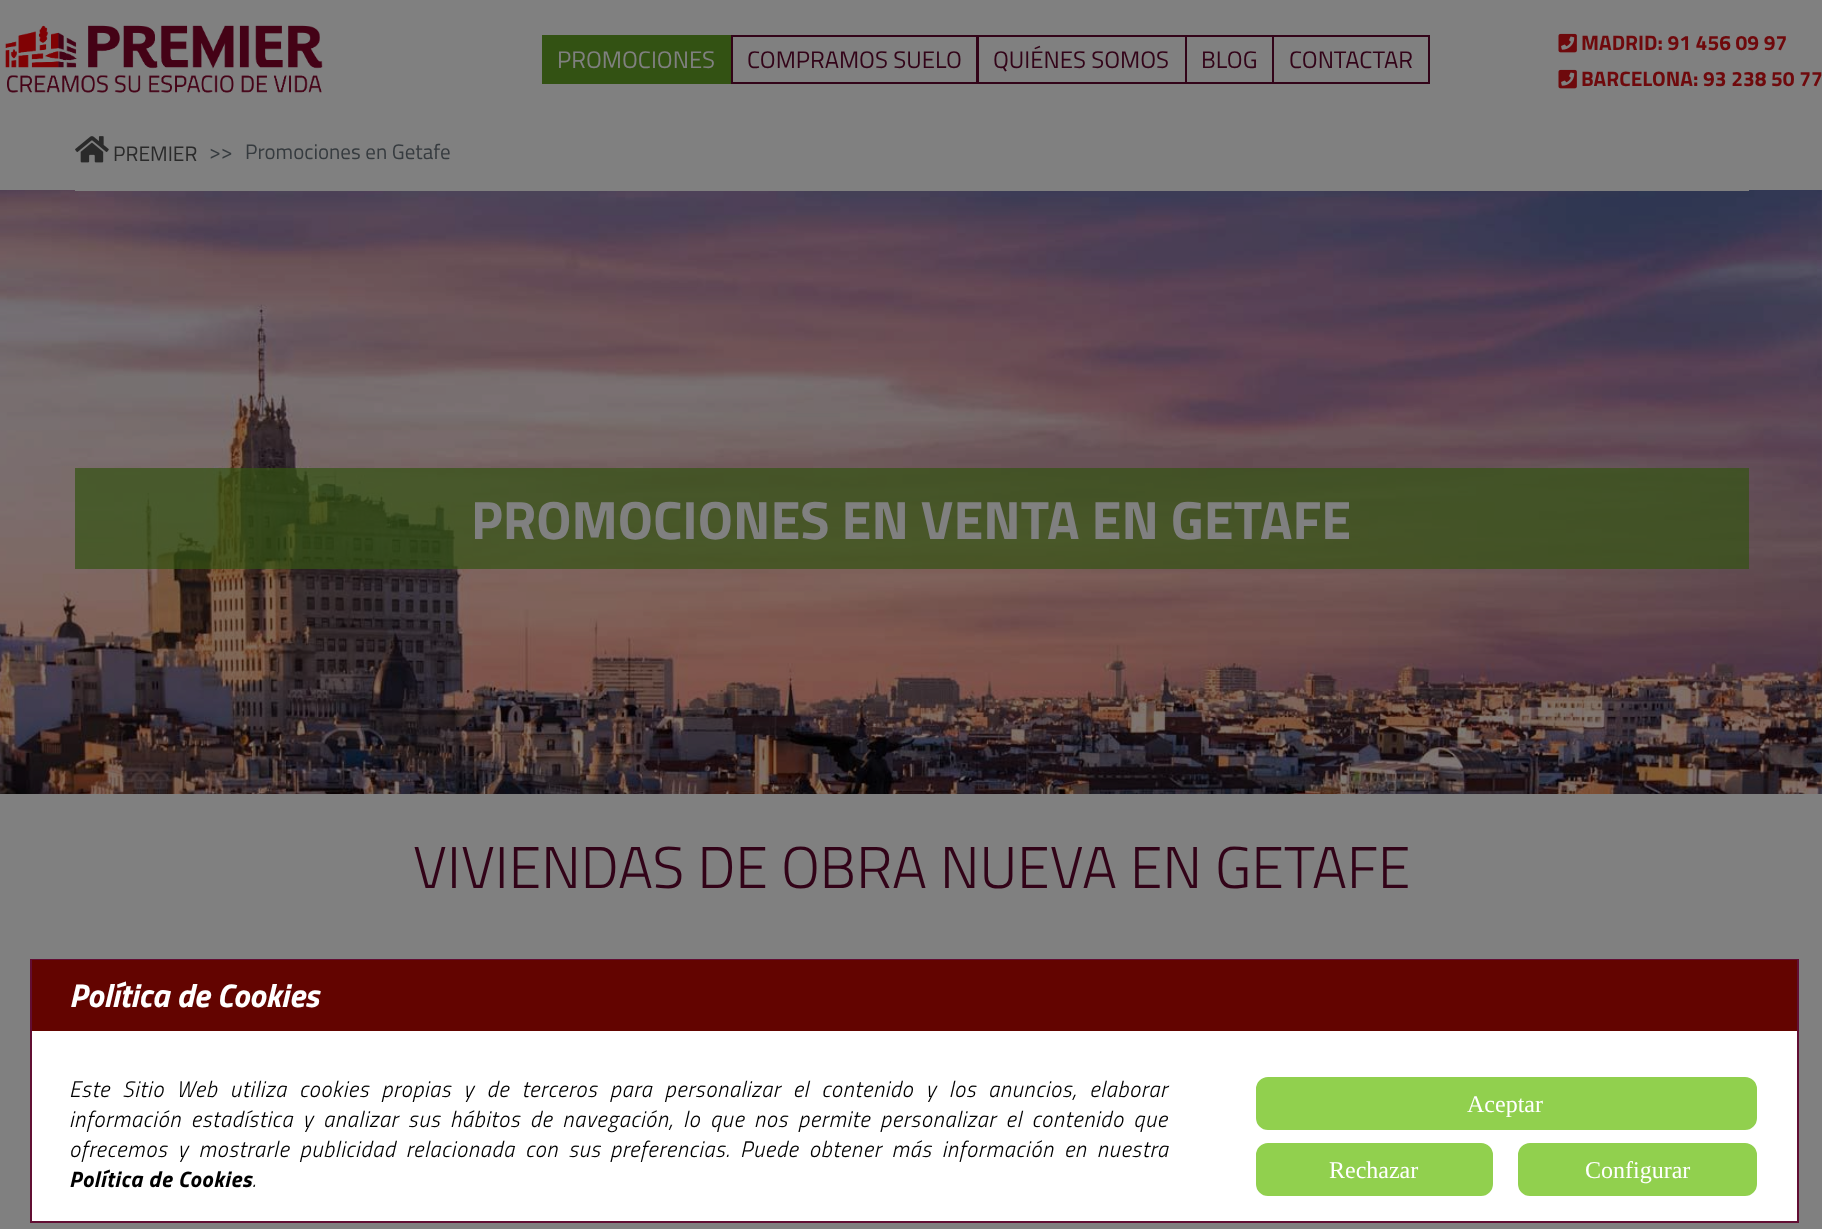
<!DOCTYPE html>
<meta charset="utf-8">
<style>body { margin: 0 } canvas { display: block }</style>
<canvas id="canvas" width="1822" height="1229"></canvas>
<script type="module">
  const canvas = document.getElementById("canvas");
  const ctx = canvas.getContext("2d");
  ctx.miterLimit = 4;
  ctx.fontKerning = "normal";
  async function loadImage(src) {
    const img = new Image();
    img.src = src;
    await img.decode();
    return img;
  }

  ctx.fillStyle = "#808080";
  ctx.fillRect(0, 0, 1822, 1229);
  ctx.drawImage(await loadImage("img1.png"), 5, 25, 318, 68);
  ctx.fillStyle = "#335213";
  ctx.fillRect(542, 35, 189, 49);
  ctx.font = "24px Titillium Web";
  ctx.fillStyle = "#808080";
  ctx.fillText("PROMOCIONES", 557, 68);
  ctx.strokeStyle = "#320318";
  ctx.lineWidth = 2;
  ctx.strokeRect(732, 36, 245, 47);
  ctx.fillStyle = "#320318";
  ctx.fillText("COMPRAMOS SUELO", 747, 68);
  ctx.strokeRect(978, 36, 208, 47);
  ctx.fillText("QUIÉNES SOMOS", 993, 68);
  ctx.strokeRect(1186, 36, 87, 47);
  ctx.fillText("BLOG", 1201, 68);
  ctx.strokeRect(1273, 36, 156, 47);
  ctx.fillText("CONTACTAR", 1289, 68);
  ctx.drawImage(await loadImage("img2.png"), 1558, 33, 19, 20);
  ctx.font = "bold 21px Titillium Web";
  ctx.fillStyle = "#6f090c";
  ctx.fillText("MADRID: 91 456 09 97", 1581, 50);
  ctx.drawImage(await loadImage("img2.png"), 1558, 69, 19, 20);
  ctx.fillText("BARCELONA: 93 238 50 77", 1581, 86);
  ctx.drawImage(await loadImage("img4.png"), 0, 190, 1822, 604);
  ctx.fillStyle = "#808080";
  ctx.fillRect(75, 190, 1674, 1);
  ctx.drawImage(await loadImage("img3.png"), 75, 136, 34, 27);
  ctx.font = "21px Titillium Web";
  ctx.fillStyle = "#2a2a2a";
  ctx.fillText("PREMIER", 113, 161);
  ctx.fillStyle = "#363b3f";
  ctx.fillText(">>", 209, 159);
  ctx.fillText("Promociones en Getafe", 245, 159);
  ctx.fillStyle = "rgba(51, 82, 19, 0.7)";
  ctx.fillRect(75, 468, 1674, 101);
  ctx.font = "bold 54px Titillium Web";
  ctx.fillStyle = "#808080";
  ctx.fillText("PROMOCIONES EN VENTA EN GETAFE", 471, 539);
  ctx.font = "300 58.9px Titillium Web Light";
  ctx.fillStyle = "#320318";
  ctx.fillText("VIVIENDAS DE OBRA NUEVA EN GETAFE", 413, 888);
  ctx.fillStyle = "#ffffff";
  ctx.fillRect(32, 1031, 1765, 190);
  ctx.strokeStyle = "#620e33";
  ctx.strokeRect(31, 960, 1767, 262);
  ctx.fillStyle = "#630400";
  ctx.fillRect(32, 960, 1765, 71);
  ctx.font = "italic bold 33px Titillium Web";
  ctx.fillStyle = "#ffffff";
  ctx.fillText("Política de Cookies", 69, 1007);
  ctx.letterSpacing = "0.68px";
  ctx.wordSpacing = "6.6px";
  ctx.font = "italic 300 22.5px Titillium Web";
  ctx.fillStyle = "#000000";
  ctx.fillText("Este Sitio Web utiliza cookies propias y de terceros para personalizar el contenido y los", 69, 1097);
  ctx.fillText("anuncios, elaborar", 988, 1097);
  ctx.wordSpacing = "4px";
  ctx.fillText("información estadística y analizar sus hábitos de navegación, lo que nos", 69, 1127);
  ctx.fillText("permite personalizar el contenido que", 798, 1127);
  ctx.wordSpacing = "4.5px";
  ctx.fillText("ofrecemos y mostrarle publicidad relacionada con sus", 69, 1157);
  ctx.fillText("preferencias. Puede obtener más información en nuestra", 610, 1157);
  ctx.wordSpacing = "0px";
  ctx.font = "italic bold 22.5px Titillium Web";
  ctx.fillText("Política de Cookies", 69, 1187);
  ctx.font = "italic 300 22.5px Titillium Web";
  ctx.fillText(".", 252, 1187);
  ctx.fillStyle = "#91d04e";
  ctx.beginPath();
  ctx.roundRect(1254.5, 1075.5, 504, 56, 13.5);
  ctx.fill();
  ctx.strokeStyle = "#ffffff";
  ctx.lineWidth = 3;
  ctx.stroke();
  ctx.letterSpacing = "0px";
  ctx.font = "24px Liberation Serif";
  ctx.fillStyle = "#ffffff";
  ctx.fillText("Aceptar", 1467, 1112);
  ctx.fillStyle = "#91d04e";
  ctx.beginPath();
  ctx.roundRect(1254.5, 1141.5, 240, 56, 13.5);
  ctx.fill();
  ctx.stroke();
  ctx.fillStyle = "#ffffff";
  ctx.fillText("Rechazar", 1329, 1178);
  ctx.fillStyle = "#91d04e";
  ctx.beginPath();
  ctx.roundRect(1516.5, 1141.5, 242, 56, 13.5);
  ctx.fill();
  ctx.stroke();
  ctx.fillStyle = "#ffffff";
  ctx.fillText("Configurar", 1585, 1178);
</script>
